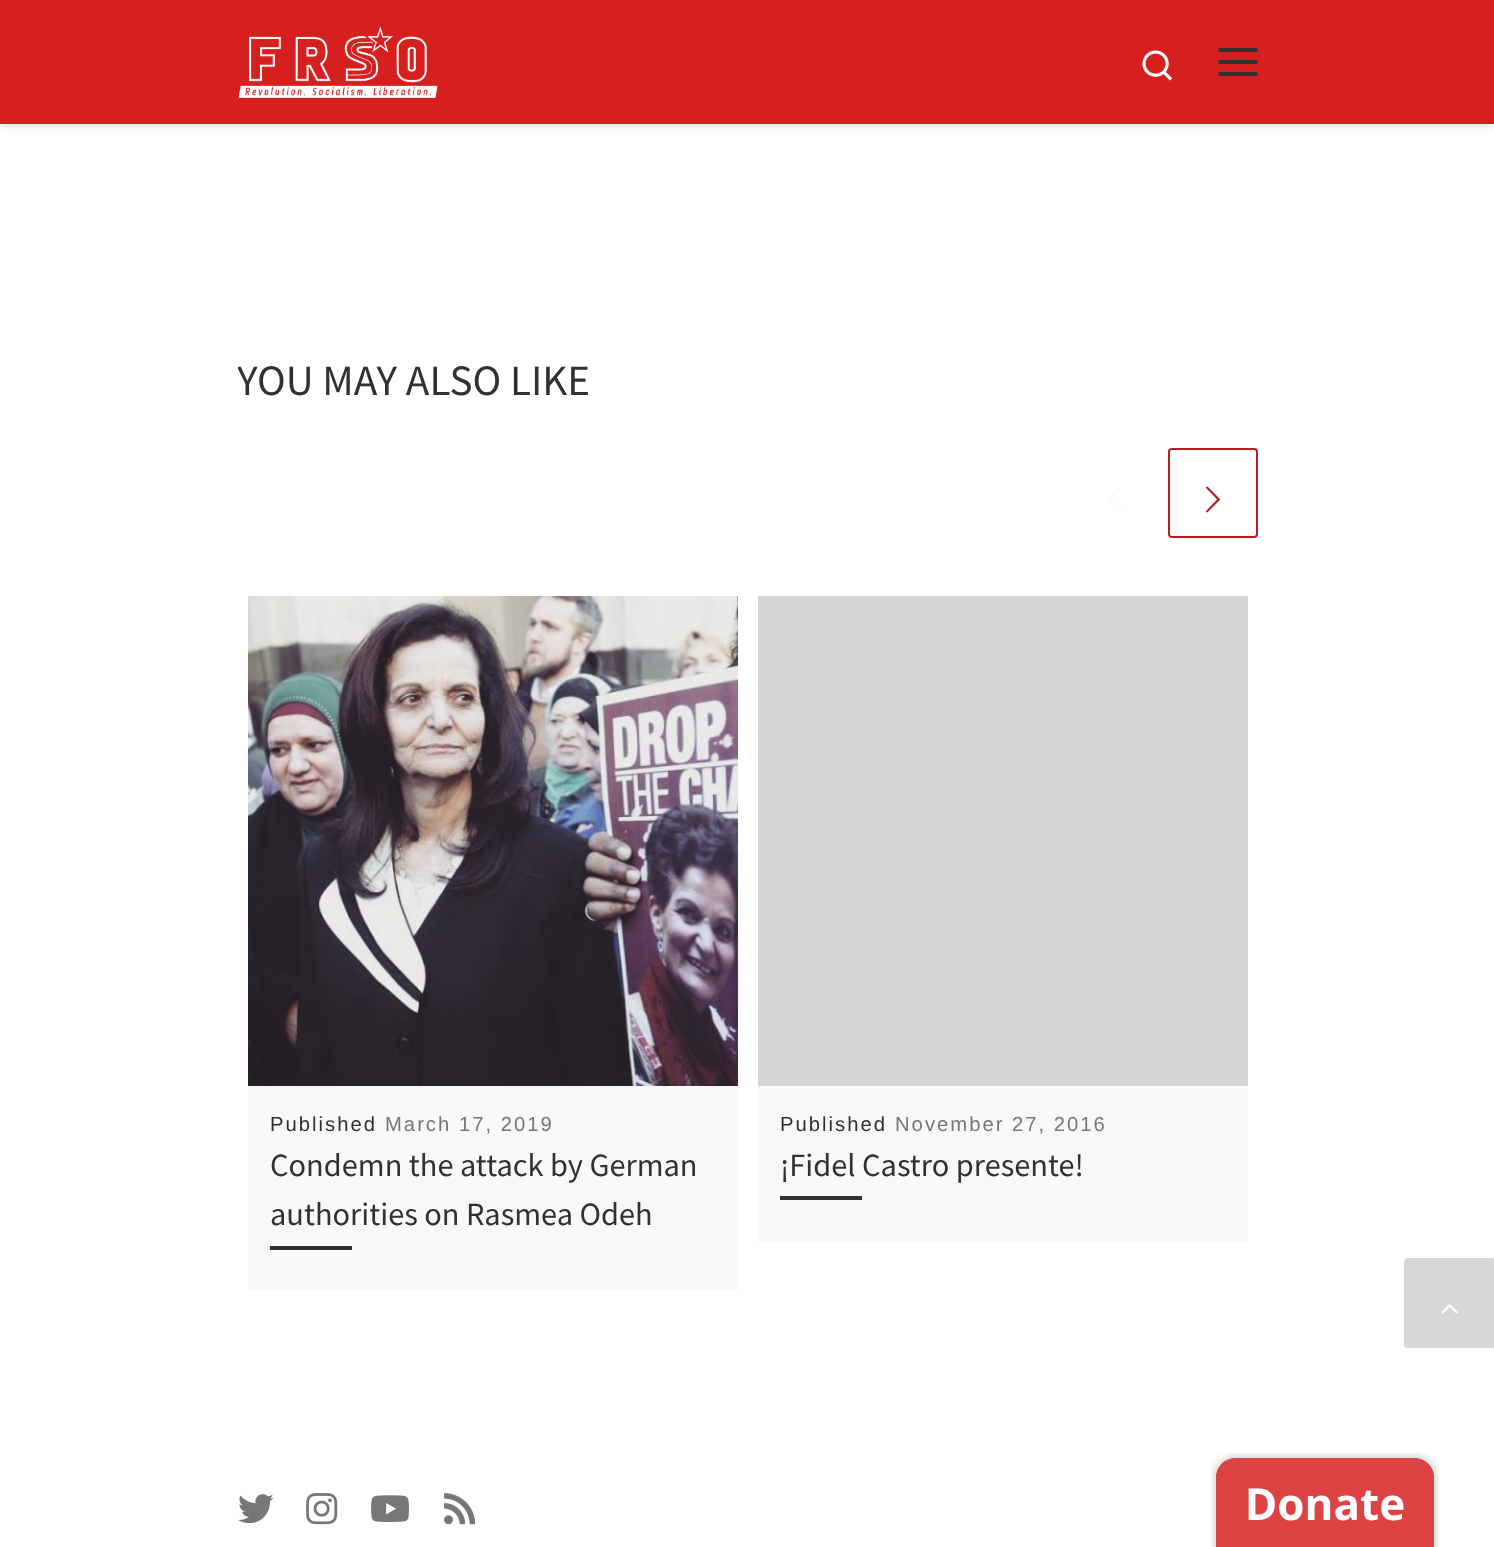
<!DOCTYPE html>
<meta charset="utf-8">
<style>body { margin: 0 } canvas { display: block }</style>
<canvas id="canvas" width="1494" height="1547"></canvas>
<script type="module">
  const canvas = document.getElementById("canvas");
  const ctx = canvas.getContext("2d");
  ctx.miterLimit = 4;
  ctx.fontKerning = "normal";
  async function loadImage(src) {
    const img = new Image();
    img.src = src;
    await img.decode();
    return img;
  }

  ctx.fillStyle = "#ffffff";
  ctx.fillRect(0, 0, 1494, 1547);
  ctx.fillStyle = "rgba(0, 0, 0, 0.2)";
  ctx.filter = "blur(5px)";
  ctx.beginPath();
  ctx.rect(0, 0, 1494, 124);
  ctx.fill();
  ctx.filter = "none";
  ctx.fillStyle = "#d6201f";
  ctx.fillRect(0, 0, 1494, 122);
  ctx.drawImage(await loadImage("img1.png"), 238, 26, 200, 72);
  ctx.drawImage(await loadImage("img2.png"), 1142, 50, 31, 31);
  ctx.fillStyle = "#313131";
  ctx.beginPath();
  ctx.roundRect(1218, 48, 40, 4, 2);
  ctx.fill();
  ctx.beginPath();
  ctx.roundRect(1218, 60, 40, 4, 2);
  ctx.fill();
  ctx.beginPath();
  ctx.roundRect(1218, 72, 40, 4, 2);
  ctx.fill();
  ctx.fillStyle = "#ca2120";
  ctx.fillRect(0, 122, 1494, 2);
  ctx.save();
  ctx.beginPath();
  ctx.rect(238, 262, 1020, 1086);
  ctx.clip();
  ctx.font = "43.25px Source Sans Pro";
  ctx.fillStyle = "#303133";
  ctx.fillText("YOU MAY ALSO LIKE", 237, 395);
  ctx.restore();
  ctx.drawImage(await loadImage("img3.png"), 1108, 487, 14, 25);
  ctx.beginPath();
  ctx.roundRect(1169, 449, 88, 88, 3);
  ctx.strokeStyle = "#b51e1e";
  ctx.lineWidth = 2;
  ctx.stroke();
  ctx.drawImage(await loadImage("img4.png"), 1206, 486, 14, 27);
  ctx.fillStyle = "#f7f8f9";
  ctx.fillRect(248, 1086, 490, 204);
  ctx.drawImage(await loadImage("img5.png"), 248, 596, 490, 490);
  ctx.letterSpacing = "2px";
  ctx.font = "20.25px Liberation Sans";
  ctx.fillStyle = "#303133";
  ctx.fillText("Published", 270, 1131);
  ctx.fillStyle = "#777777";
  ctx.fillText("March 17, 2019", 385, 1131);
  ctx.letterSpacing = "0px";
  ctx.font = "32.4px Source Sans Pro";
  ctx.fillStyle = "#303133";
  ctx.fillText("Condemn the attack by German", 270, 1176);
  ctx.fillText("authorities on Rasmea Odeh", 270, 1225);
  ctx.fillStyle = "#313131";
  ctx.fillRect(270, 1246, 82, 4);
  ctx.fillStyle = "#f7f8f9";
  ctx.fillRect(758, 1086, 490, 156);
  ctx.fillStyle = "#d5d5d5";
  ctx.fillRect(758, 596, 490, 490);
  ctx.letterSpacing = "2px";
  ctx.font = "20.25px Liberation Sans";
  ctx.fillStyle = "#303133";
  ctx.fillText("Published", 780, 1131);
  ctx.fillStyle = "#777777";
  ctx.fillText("November 27, 2016", 895, 1131);
  ctx.letterSpacing = "0px";
  ctx.font = "32.4px Source Sans Pro";
  ctx.fillStyle = "#303133";
  ctx.fillText("¡Fidel Castro presente!", 780, 1176);
  ctx.fillStyle = "#313131";
  ctx.fillRect(780, 1196, 82, 4);
  ctx.drawImage(await loadImage("img6.png"), 238, 1494, 36, 30);
  ctx.drawImage(await loadImage("img7.png"), 306, 1493, 32, 32);
  ctx.drawImage(await loadImage("img8.png"), 371, 1495, 39, 27);
  ctx.drawImage(await loadImage("img9.png"), 444, 1493, 32, 32);
  ctx.drawImage(await loadImage("img10.png"), 1211, 1453, 228, 94);
  ctx.drawImage(await loadImage("img11.png"), 1211, 1453, 228, 94);
  ctx.fillStyle = "#d8d8d8";
  ctx.beginPath();
  ctx.roundRect(1404, 1258, 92, 90, 4);
  ctx.fill();
  ctx.drawImage(await loadImage("img12.png"), 1441, 1304, 17, 10);
</script>
